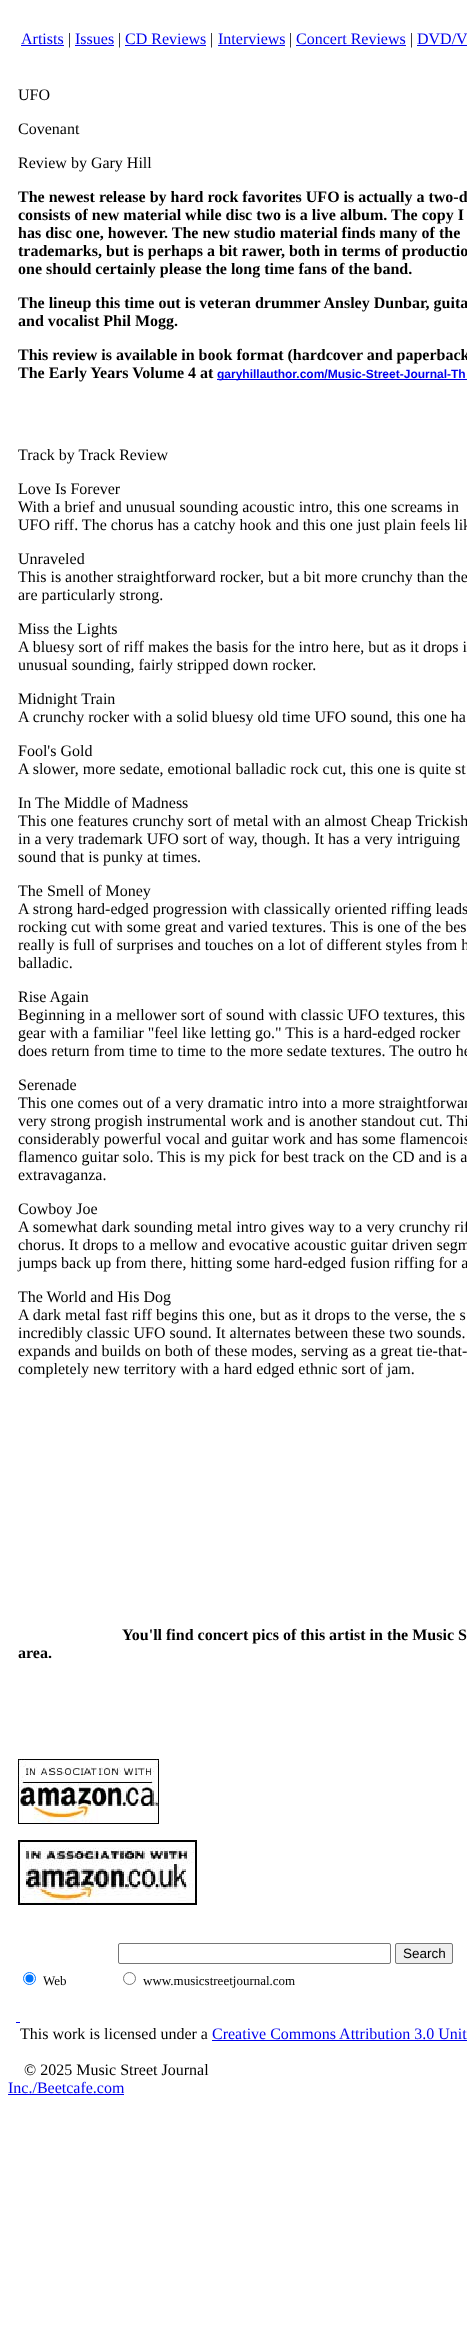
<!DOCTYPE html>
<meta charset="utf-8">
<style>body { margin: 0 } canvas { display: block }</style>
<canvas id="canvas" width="467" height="2328"></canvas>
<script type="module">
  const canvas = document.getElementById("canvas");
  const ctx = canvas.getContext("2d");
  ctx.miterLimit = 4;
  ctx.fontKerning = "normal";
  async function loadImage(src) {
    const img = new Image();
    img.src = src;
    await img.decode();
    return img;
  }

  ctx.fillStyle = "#ffffff";
  ctx.fillRect(0, 0, 467, 2328);
  ctx.font = "16px Liberation Serif";
  ctx.fillStyle = "#0000ee";
  ctx.fillText("Artists", 21, 44);
  ctx.fillRect(21, 45, 43, 1);
  ctx.fillStyle = "#000000";
  ctx.fillText("|", 68, 44);
  ctx.fillStyle = "#0000ee";
  ctx.fillText("Issues", 75, 44);
  ctx.fillRect(75, 45, 39, 1);
  ctx.fillStyle = "#000000";
  ctx.fillText("|", 118, 44);
  ctx.fillStyle = "#0000ee";
  ctx.fillText("CD Reviews", 125, 44);
  ctx.fillRect(125, 45, 81, 1);
  ctx.fillStyle = "#000000";
  ctx.fillText("|", 210, 44);
  ctx.fillStyle = "#0000ee";
  ctx.fillText("Interviews", 218, 44);
  ctx.fillRect(218, 45, 67, 1);
  ctx.fillStyle = "#000000";
  ctx.fillText("|", 289, 44);
  ctx.fillStyle = "#0000ee";
  ctx.fillText("Concert Reviews", 296, 44);
  ctx.fillRect(296, 45, 110, 1);
  ctx.fillStyle = "#000000";
  ctx.fillText("|", 410, 44);
  ctx.fillStyle = "#0000ee";
  ctx.fillText("DVD/V", 417, 44);
  ctx.fillRect(417, 45, 50, 1);
  ctx.fillStyle = "#000000";
  ctx.fillText("UFO", 18, 100);
  ctx.fillText("Covenant", 18, 134);
  ctx.fillText("Review by Gary Hill", 18, 168);
  ctx.font = "bold 16px Liberation Serif";
  ctx.fillText("The newest release by hard rock favorites UFO is actually a two-d", 18, 202);
  ctx.fillText("consists of new material while disc two is a live album. The copy I", 18, 220);
  ctx.fillText("has disc one, however. The new studio material finds many of the", 18, 238);
  ctx.fillText("trademarks, but is perhaps a bit rawer, both in terms of productio", 18, 256);
  ctx.fillText("one should certainly please the long time fans of the band.", 18, 274);
  ctx.fillText("The lineup this time out is veteran drummer Ansley Dunbar, guita", 18, 308);
  ctx.fillText("and vocalist Phil Mogg.", 18, 326);
  ctx.fillText("This review is available in book format (hardcover and paperback", 18, 360);
  ctx.fillText("The Early Years Volume 4 at", 18, 378);
  ctx.fillStyle = "#0000ee";
  ctx.fillRect(217, 379, 250, 1);
  ctx.font = "bold 12px Liberation Sans";
  ctx.fillText("garyhillauthor.com/Music-Street-Journal-Th", 217, 378);
  ctx.font = "16px Liberation Serif";
  ctx.fillStyle = "#000000";
  ctx.fillText("Track by Track Review", 18, 460);
  ctx.fillText("Love Is Forever", 18, 494);
  ctx.fillText("With a brief and unusual sounding acoustic intro, this one screams in", 18, 512);
  ctx.fillText("UFO riff. The chorus has a catchy hook and this one just plain feels lik", 18, 530);
  ctx.fillText("Unraveled", 18, 564);
  ctx.fillText("This is another straightforward rocker, but a bit more crunchy than the", 18, 582);
  ctx.fillText("are particularly strong.", 18, 600);
  ctx.fillText("Miss the Lights", 18, 634);
  ctx.fillText("A bluesy sort of riff makes the basis for the intro here, but as it drops i", 18, 652);
  ctx.fillText("unusual sounding, fairly stripped down rocker.", 18, 670);
  ctx.fillText("Midnight Train", 18, 704);
  ctx.fillText("A crunchy rocker with a solid bluesy old time UFO sound, this one ha", 18, 722);
  ctx.fillText("Fool's Gold", 18, 756);
  ctx.fillText("A slower, more sedate, emotional balladic rock cut, this one is quite st", 18, 774);
  ctx.fillText("In The Middle of Madness", 18, 808);
  ctx.fillText("This one features crunchy sort of metal with an almost Cheap Trickish", 18, 826);
  ctx.fillText("in a very trademark UFO sort of way, though. It has a very intriguing", 18, 844);
  ctx.fillText("sound that is punky at times.", 18, 862);
  ctx.fillText("The Smell of Money", 18, 896);
  ctx.fillText("A strong hard-edged progression with classically oriented riffing leads", 18, 914);
  ctx.fillText("rocking cut with some great and varied textures. This is one of the bes", 18, 932);
  ctx.fillText("really is full of surprises and touches on a lot of different styles from h", 18, 950);
  ctx.fillText("balladic.", 18, 968);
  ctx.fillText("Rise Again", 18, 1002);
  ctx.fillText("Beginning in a mellower sort of sound with classic UFO textures, this", 18, 1020);
  ctx.fillText("gear with a familiar \"feel like letting go.\" This is a hard-edged rocker", 18, 1038);
  ctx.fillText("does return from time to time to the more sedate textures. The outro he", 18, 1056);
  ctx.fillText("Serenade", 18, 1090);
  ctx.fillText("This one comes out of a very dramatic intro into a more straightforwar", 18, 1108);
  ctx.fillText("very strong progish instrumental work and is another standout cut. Thi", 18, 1126);
  ctx.fillText("considerably powerful vocal and guitar work and has some flamencois", 18, 1144);
  ctx.fillText("flamenco guitar solo. This is my pick for best track on the CD and is a", 18, 1162);
  ctx.fillText("extravaganza.", 18, 1180);
  ctx.fillText("Cowboy Joe", 18, 1214);
  ctx.fillText("A somewhat dark sounding metal intro gives way to a very crunchy rif", 18, 1232);
  ctx.fillText("chorus. It drops to a mellow and evocative acoustic guitar driven segm", 18, 1250);
  ctx.fillText("jumps back up from there, hitting some hard-edged fusion riffing for a", 18, 1268);
  ctx.fillText("The World and His Dog", 18, 1302);
  ctx.fillText("A dark metal fast riff begins this one, but as it drops to the verse, the s", 18, 1320);
  ctx.fillText("incredibly classic UFO sound. It alternates between these two sounds.", 18, 1338);
  ctx.fillText("expands and builds on both of these modes, serving as a great tie-that-", 18, 1356);
  ctx.fillText("completely new territory with a hard edged ethnic sort of jam.", 18, 1374);
  ctx.font = "bold 16px Liberation Serif";
  ctx.fillText("You'll find concert pics of this artist in the Music S", 122, 1640);
  ctx.fillText("area.", 18, 1658);
  ctx.drawImage(await loadImage("img1.png"), 18, 1759, 141, 65);
  ctx.drawImage(await loadImage("img2.png"), 18, 1840, 179, 65);
  ctx.beginPath();
  ctx.roundRect(118.5, 1943.5, 272, 20, 1.5);
  ctx.strokeStyle = "#767676";
  ctx.stroke();
  ctx.fillStyle = "#efefef";
  ctx.beginPath();
  ctx.roundRect(395.5, 1943.5, 57, 20, 1.5);
  ctx.fill();
  ctx.stroke();
  ctx.font = "13.5px Liberation Sans";
  ctx.fillStyle = "#000000";
  ctx.fillText("Search", 403, 1958);
  ctx.beginPath();
  ctx.arc(29.5, 1978.5, 6, 0, Math.PI * 2);
  ctx.strokeStyle = "#0075ff";
  ctx.stroke();
  ctx.fillStyle = "#0075ff";
  ctx.beginPath();
  ctx.arc(29.5, 1978.5, 4, 0, Math.PI * 2);
  ctx.fill();
  ctx.font = "13px Liberation Serif";
  ctx.fillStyle = "#000000";
  ctx.fillText("Web", 43, 1985);
  ctx.beginPath();
  ctx.arc(129.5, 1978.5, 6, 0, Math.PI * 2);
  ctx.strokeStyle = "#767676";
  ctx.stroke();
  ctx.fillText("www.musicstreetjournal.com", 143, 1985);
  ctx.fillStyle = "#0000ee";
  ctx.fillRect(16, 2022, 4, 1);
  ctx.font = "16px Liberation Serif";
  ctx.fillStyle = "#000000";
  ctx.fillText("This work is licensed under a", 20, 2039);
  ctx.fillStyle = "#0000ee";
  ctx.fillText("Creative Commons Attribution 3.0 Unit", 212, 2039);
  ctx.fillRect(212, 2040, 255, 1);
  ctx.fillStyle = "#000000";
  ctx.fillText("© 2025 Music Street Journal", 24, 2075);
  ctx.fillStyle = "#0000ee";
  ctx.fillText("Inc./Beetcafe.com", 8, 2093);
  ctx.fillRect(8, 2094, 116, 1);
</script>
